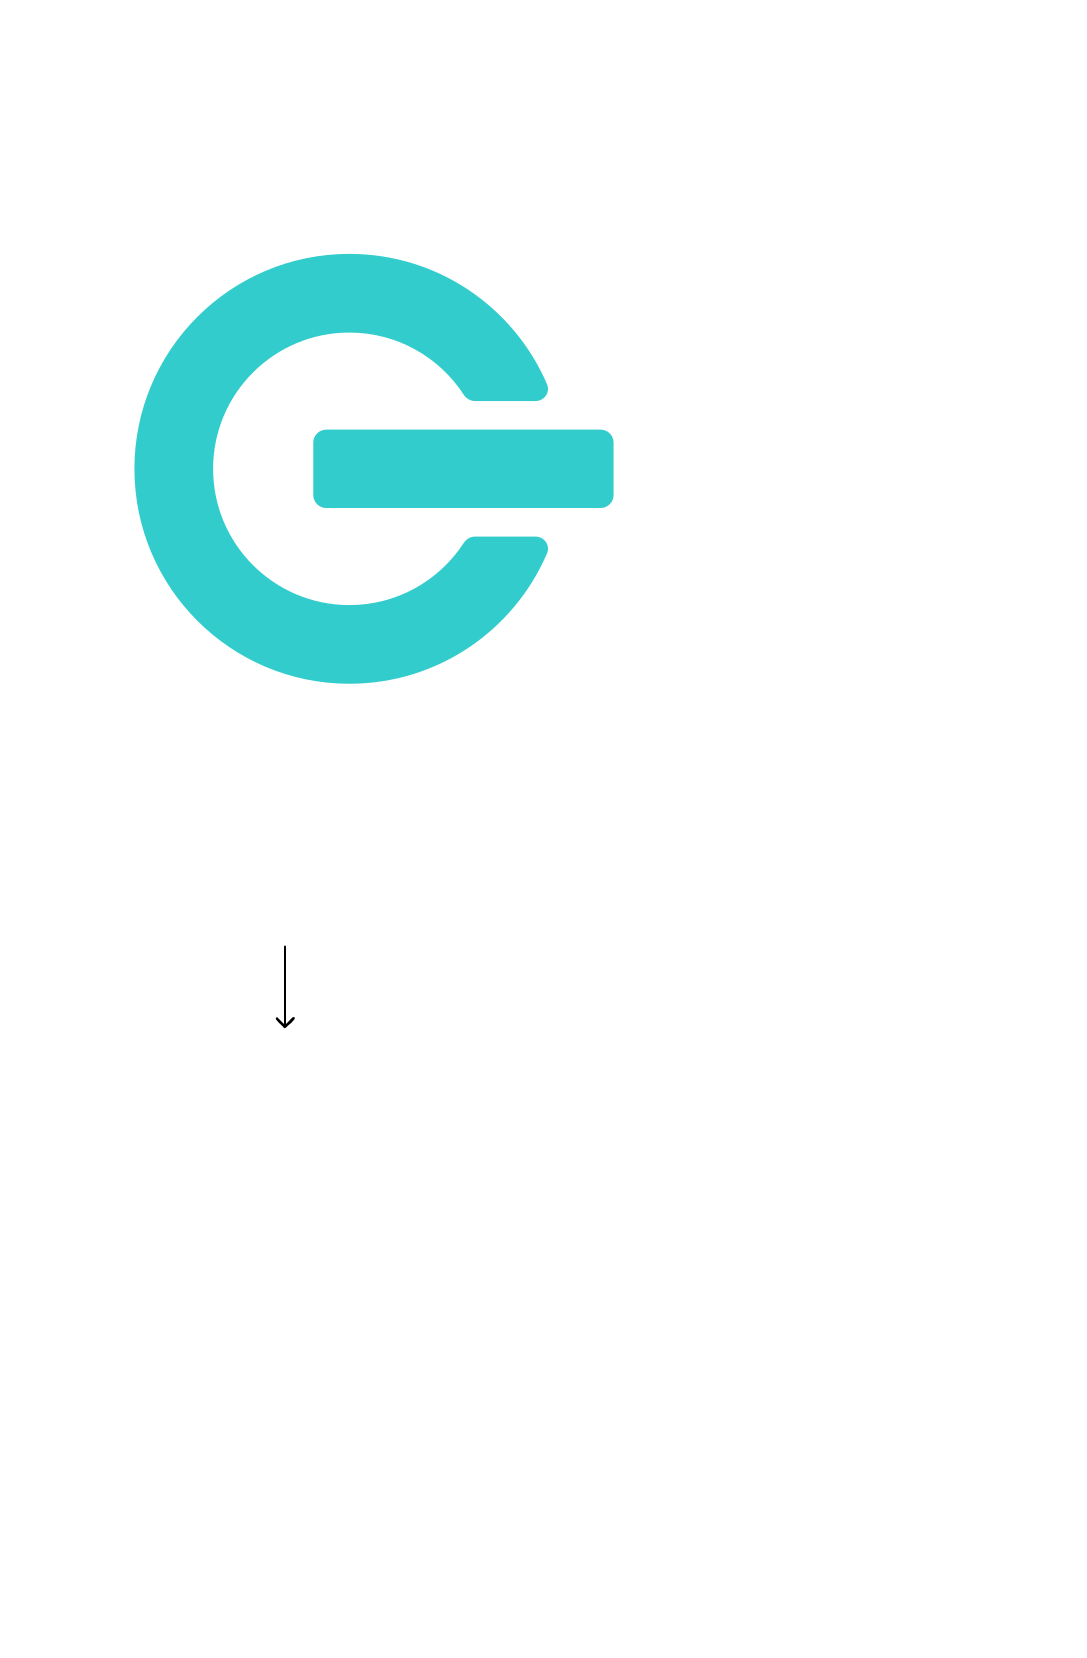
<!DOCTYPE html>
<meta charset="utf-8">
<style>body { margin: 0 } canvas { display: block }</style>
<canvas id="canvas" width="1087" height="1658"></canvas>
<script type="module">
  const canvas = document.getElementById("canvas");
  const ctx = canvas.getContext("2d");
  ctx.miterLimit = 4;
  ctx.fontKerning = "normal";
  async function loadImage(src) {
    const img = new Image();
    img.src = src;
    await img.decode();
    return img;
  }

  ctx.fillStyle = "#ffffff";
  ctx.fillRect(0, 0, 1087, 1658);
  ctx.drawImage(await loadImage("img1.png"), 134, 253, 480, 431);
  ctx.fillStyle = "#000000";
  ctx.beginPath();
  ctx.moveTo(286, 947);
  ctx.bezierCurveTo(286, 945, 284, 945, 284, 947);
  ctx.closePath();
  ctx.moveTo(284, 1028);
  ctx.bezierCurveTo(286, 1029, 289, 1024, 290, 1024);
  ctx.bezierCurveTo(291, 1023, 297, 1018, 294, 1017);
  ctx.bezierCurveTo(292, 1017, 291, 1019, 290, 1020);
  ctx.lineTo(285, 1025);
  ctx.lineTo(277, 1017);
  ctx.lineTo(276, 1018);
  ctx.bezierCurveTo(274, 1019, 283, 1026, 284, 1028);
  ctx.closePath();
  ctx.moveTo(284, 947);
  ctx.lineTo(284, 1027);
  ctx.lineTo(286, 1027);
  ctx.lineTo(286, 947);
  ctx.closePath();
  ctx.fill();
</script>
